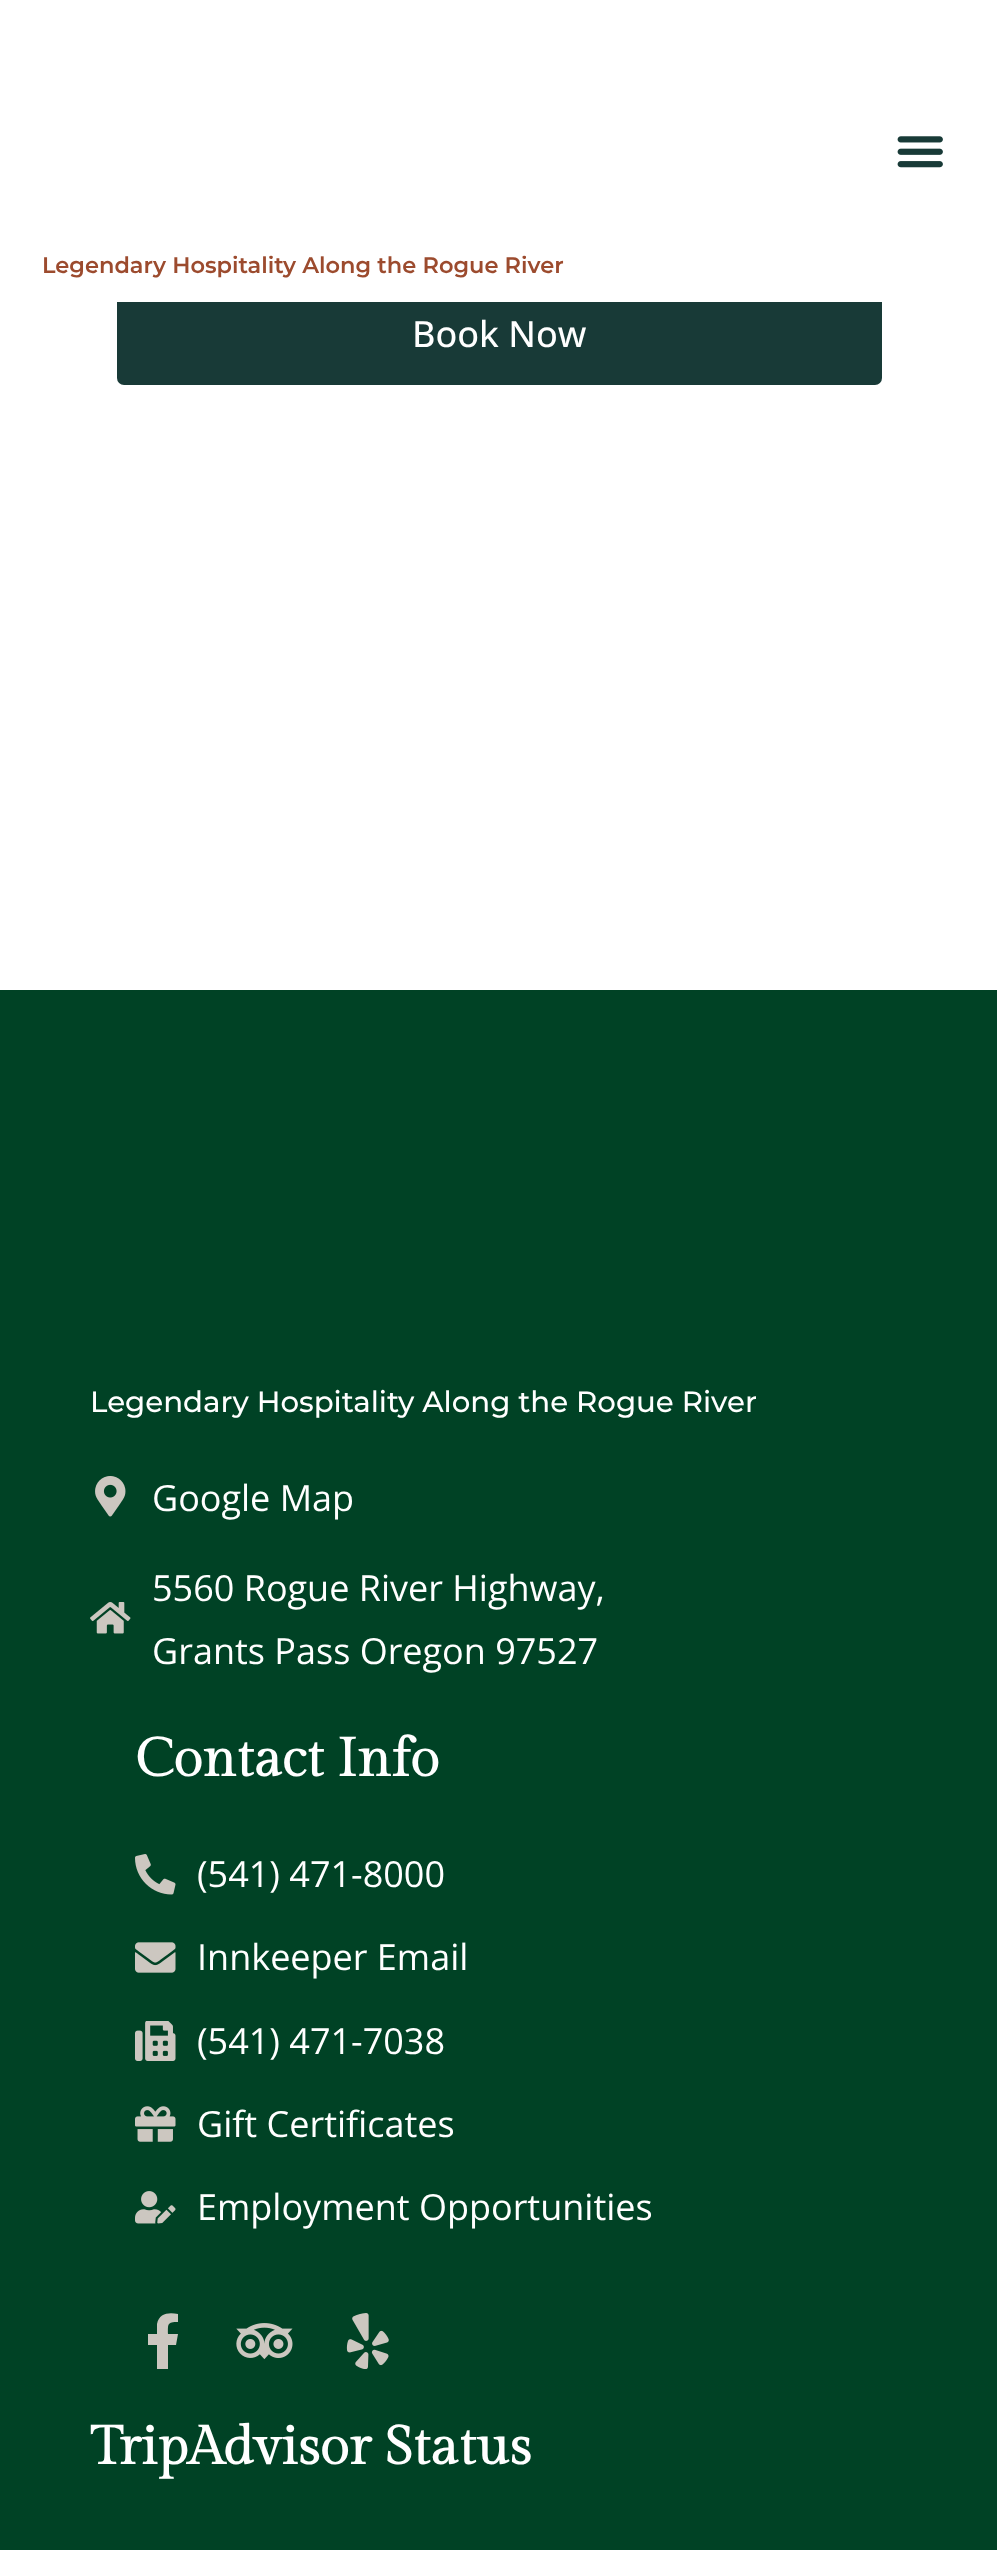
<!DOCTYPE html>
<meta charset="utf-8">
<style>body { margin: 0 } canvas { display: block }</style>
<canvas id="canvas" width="997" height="2550"></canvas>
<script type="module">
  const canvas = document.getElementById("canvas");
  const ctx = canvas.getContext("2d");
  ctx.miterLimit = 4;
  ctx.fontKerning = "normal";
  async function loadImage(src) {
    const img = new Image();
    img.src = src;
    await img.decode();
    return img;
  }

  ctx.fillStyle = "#ffffff";
  ctx.fillRect(0, 0, 997, 2550);
  ctx.fillStyle = "#183a37";
  ctx.beginPath();
  ctx.roundRect(117, 281, 765, 104, 7);
  ctx.fill();
  ctx.fillStyle = "#ffffff";
  ctx.fillRect(117, 281, 765, 21);
  ctx.drawImage(await loadImage("img1.png"), 897, 136, 46, 32);
  ctx.font = "600 22.5px Montserrat";
  ctx.fillStyle = "#9c4b2e";
  ctx.fillText("Legendary Hospitality Along the Rogue River", 42, 273);
  ctx.font = "500 36px Open Sans";
  ctx.fillStyle = "#ffffff";
  ctx.fillText("Book Now", 412, 347);
  ctx.fillStyle = "#004225";
  ctx.fillRect(0, 990, 997, 1560);
  ctx.font = "500 29.25px Montserrat";
  ctx.fillStyle = "#ffffff";
  ctx.fillText("Legendary Hospitality Along the Rogue River", 90, 1412);
  ctx.drawImage(await loadImage("img2.png"), 95, 1476, 31, 41);
  ctx.font = "36px Open Sans";
  ctx.fillText("Google Map", 152, 1511);
  ctx.drawImage(await loadImage("img3.png"), 90, 1602, 41, 32);
  ctx.fillText("5560 Rogue River Highway,", 152, 1601);
  ctx.fillText("Grants Pass Oregon 97527", 152, 1664);
  ctx.font = "bold 54px Gilda Display";
  ctx.fillText("Contact Info", 135, 1776);
  ctx.drawImage(await loadImage("img4.png"), 135, 1854, 41, 41);
  ctx.font = "36px Open Sans";
  ctx.fillText("(541) 471-8000", 197, 1887);
  ctx.drawImage(await loadImage("img5.png"), 135, 1942, 41, 31);
  ctx.fillText("Innkeeper Email", 197, 1970);
  ctx.drawImage(await loadImage("img6.png"), 135, 2021, 41, 40);
  ctx.fillText("(541) 471-7038", 197, 2054);
  ctx.drawImage(await loadImage("img7.png"), 135, 2106, 41, 36);
  ctx.fillText("Gift Certificates", 197, 2137);
  ctx.drawImage(await loadImage("img8.png"), 135, 2191, 41, 33);
  ctx.fillText("Employment Opportunities", 197, 2220);
  ctx.fillStyle = "#ccc7c0";
  ctx.beginPath();
  ctx.moveTo(176, 2345);
  ctx.lineTo(178, 2334);
  ctx.lineTo(168, 2334);
  ctx.bezierCurveTo(168, 2324, 167, 2322, 178, 2322);
  ctx.lineTo(178, 2314);
  ctx.bezierCurveTo(169, 2312, 159, 2313, 157, 2324);
  ctx.lineTo(157, 2334);
  ctx.lineTo(148, 2334);
  ctx.lineTo(148, 2345);
  ctx.lineTo(157, 2345);
  ctx.lineTo(157, 2369);
  ctx.lineTo(168, 2369);
  ctx.lineTo(168, 2345);
  ctx.closePath();
  ctx.fill();
  ctx.drawImage(await loadImage("img9.png"), 236, 2323, 57, 37);
  ctx.drawImage(await loadImage("img10.png"), 346, 2313, 43, 56);
  ctx.font = "bold 54px Gilda Display";
  ctx.fillStyle = "#ffffff";
  ctx.fillText("TripAdvisor Status", 90, 2464);
</script>
